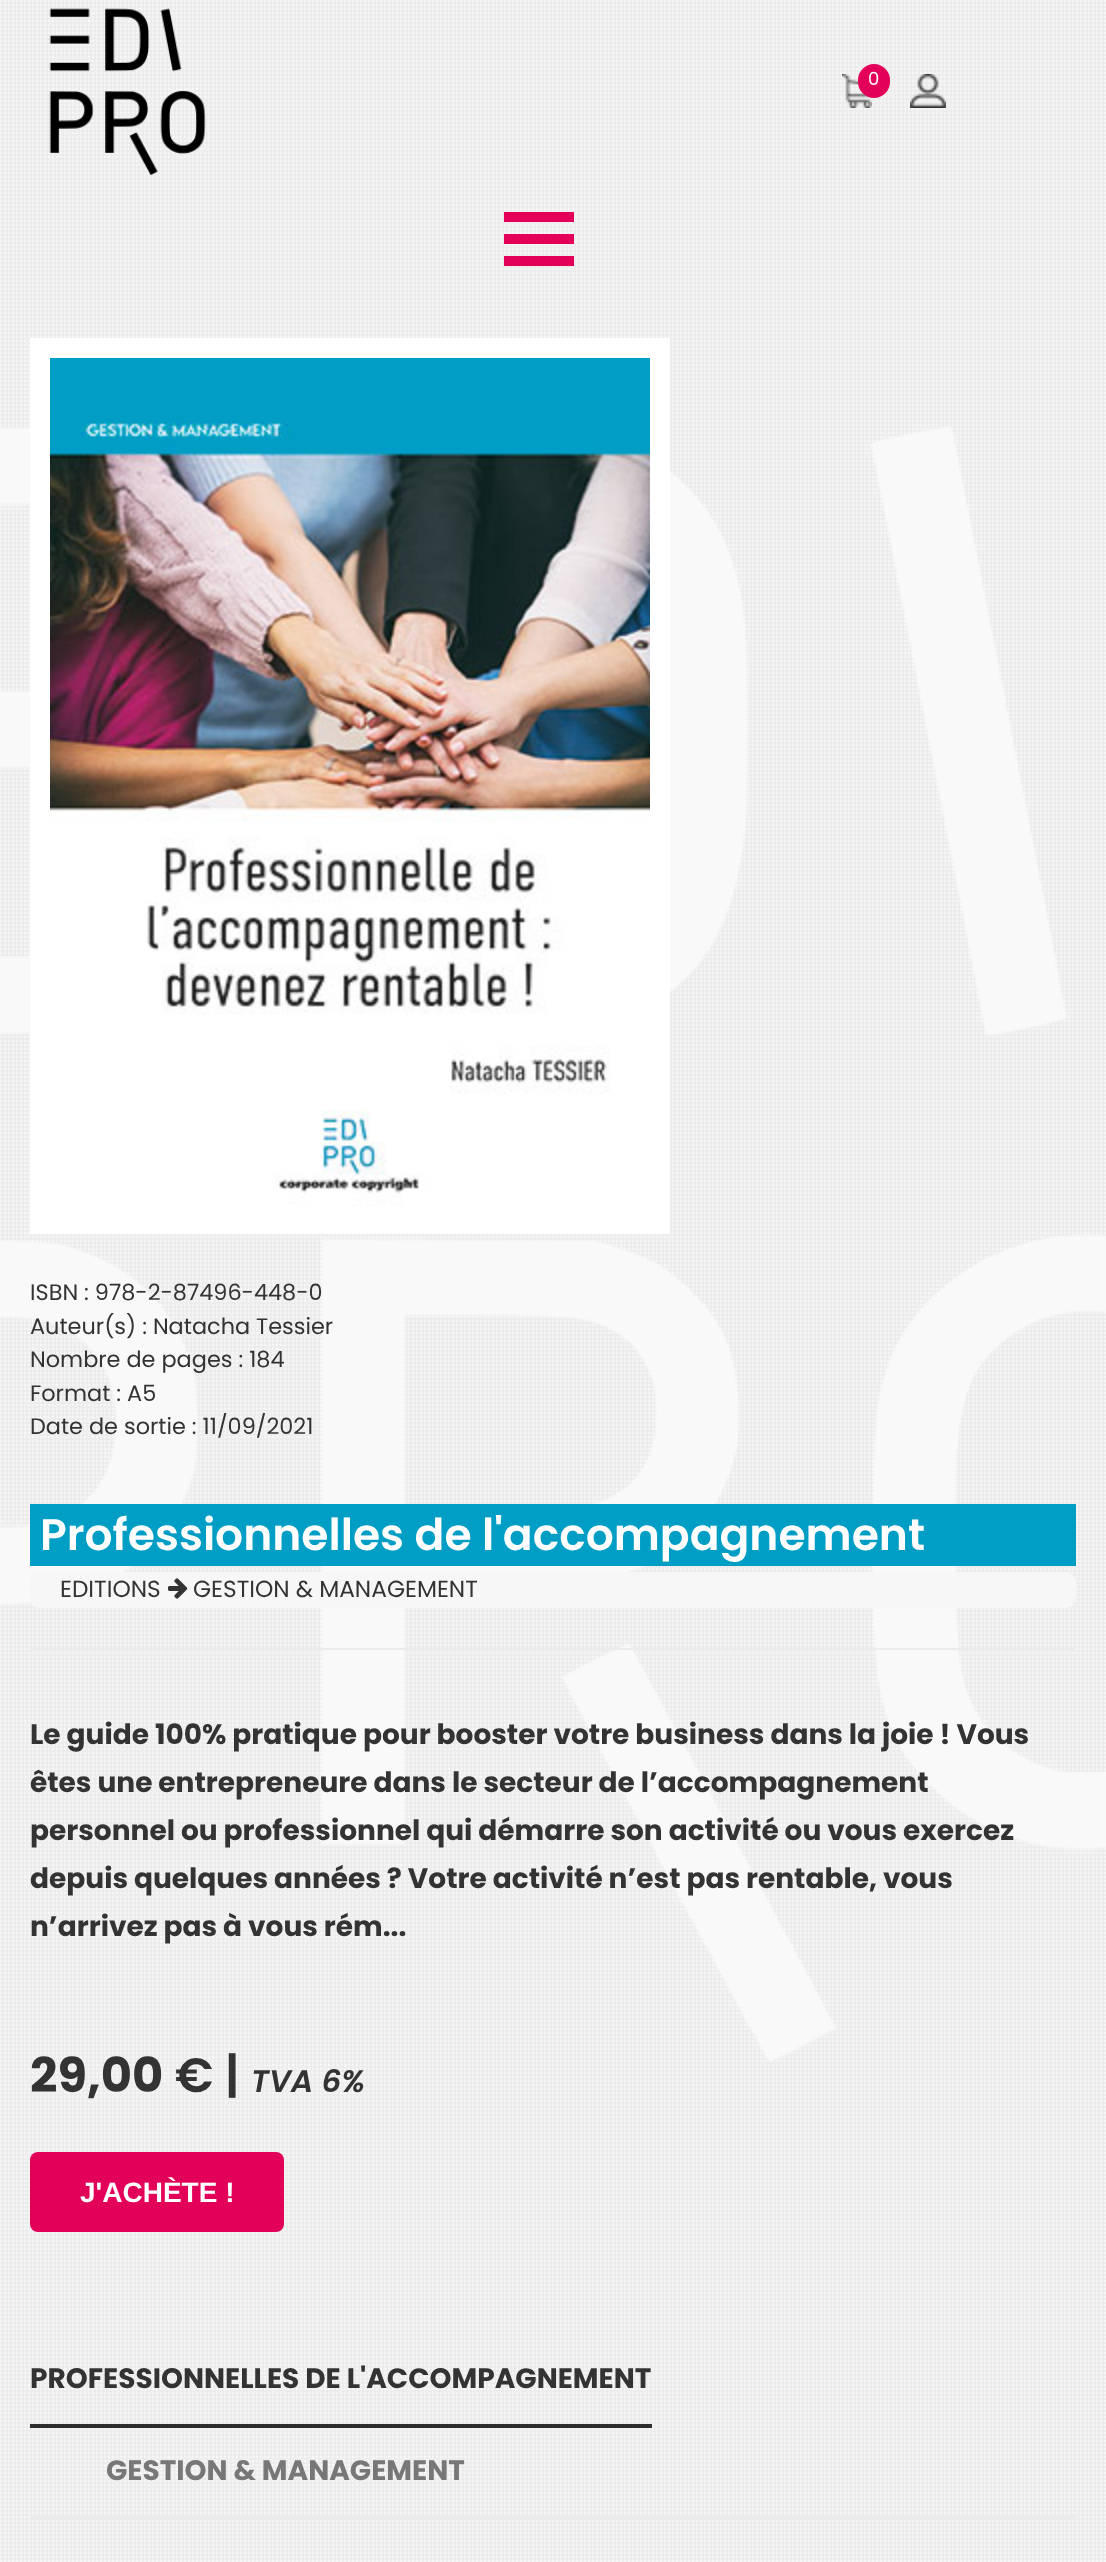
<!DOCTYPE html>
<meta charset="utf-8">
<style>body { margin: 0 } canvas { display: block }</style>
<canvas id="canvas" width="1106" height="2562"></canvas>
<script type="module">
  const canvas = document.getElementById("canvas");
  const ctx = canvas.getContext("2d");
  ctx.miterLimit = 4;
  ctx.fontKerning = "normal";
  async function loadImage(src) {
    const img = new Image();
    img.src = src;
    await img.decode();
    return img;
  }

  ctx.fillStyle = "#ebebeb";
  ctx.fillRect(0, 0, 1106, 2562);
  ctx.drawImage(await loadImage("img1.png"), 0, 0, 1106, 2562);
  ctx.drawImage(await loadImage("img2.png"), 0, 426, 1106, 1636);
  ctx.drawImage(await loadImage("img3.png"), 49, 8, 157, 168);
  ctx.drawImage(await loadImage("img4.png"), 842, 74, 30, 34);
  ctx.fillStyle = "#e30059";
  ctx.beginPath();
  ctx.roundRect(858, 64, 32, 34, 16);
  ctx.fill();
  ctx.font = "18px Poppins";
  ctx.fillStyle = "#ffffff";
  ctx.fillText("0", 868, 85);
  ctx.drawImage(await loadImage("img5.png"), 910, 74, 36, 34);
  ctx.fillStyle = "#e30059";
  ctx.fillRect(504, 212, 70, 10);
  ctx.fillRect(504, 234, 70, 10);
  ctx.fillRect(504, 256, 70, 10);
  ctx.strokeStyle = "#ffffff";
  ctx.lineWidth = 20;
  ctx.strokeRect(40, 348, 620, 876);
  ctx.drawImage(await loadImage("img6.png"), 50, 358, 600, 856);
  ctx.font = "22.4px Poppins";
  ctx.fillStyle = "#333333";
  ctx.fillText("ISBN : 978-2-87496-448-0", 30, 1300);
  ctx.fillText("Auteur(s) : Natacha Tessier", 30, 1334);
  ctx.fillText("Nombre de pages : 184", 30, 1367);
  ctx.fillText("Format : A5", 30, 1401);
  ctx.fillText("Date de sortie : 11/09/2021", 30, 1434);
  ctx.fillStyle = "#009dc5";
  ctx.fillRect(30, 1504, 1046, 62);
  ctx.font = "600 44px Poppins";
  ctx.fillStyle = "#ffffff";
  ctx.fillText("Professionnelles de l'accompagnement", 40, 1550);
  ctx.fillStyle = "#f7f7f7";
  ctx.beginPath();
  ctx.roundRect(30, 1572, 1046, 36, 10);
  ctx.fill();
  ctx.font = "23.25px Poppins";
  ctx.fillStyle = "#333333";
  ctx.fillText("EDITIONS", 60, 1597);
  ctx.drawImage(await loadImage("img7.png"), 168, 1578, 20, 21);
  ctx.fillText("GESTION & MANAGEMENT", 193, 1597);
  ctx.fillStyle = "#ebebeb";
  ctx.fillRect(30, 1648, 1046, 2);
  ctx.font = "bold 28px Poppins";
  ctx.fillStyle = "#333333";
  ctx.fillText("Le guide 100% pratique pour booster votre business dans la joie ! Vous", 30, 1744);
  ctx.fillText("êtes une entrepreneure dans le secteur de l’accompagnement", 30, 1792);
  ctx.fillText("personnel ou professionnel qui démarre son activité ou vous exercez", 30, 1840);
  ctx.fillText("depuis quelques années ? Votre activité n’est pas rentable, vous", 30, 1888);
  ctx.fillText("n’arrivez pas à vous rém...", 30, 1936);
  ctx.font = "bold 48px Poppins";
  ctx.fillText("29,00", 30, 2092);
  ctx.font = "600 48px Poppins";
  ctx.fillText("€ |", 175, 2092);
  ctx.font = "italic 600 31px Poppins";
  ctx.fillText("TVA 6%", 251, 2092);
  ctx.fillStyle = "#e30059";
  ctx.beginPath();
  ctx.roundRect(30, 2152, 254, 80, 8);
  ctx.fill();
  ctx.font = "bold 28px Liberation Sans";
  ctx.fillStyle = "#ffffff";
  ctx.fillText("J'ACHÈTE !", 80, 2202);
  ctx.fillStyle = "#ebebeb";
  ctx.fillRect(30, 2516, 1046, 4);
  ctx.font = "bold 28px Poppins";
  ctx.fillStyle = "#333333";
  ctx.fillText("PROFESSIONNELLES DE L'ACCOMPAGNEMENT", 30, 2388);
  ctx.fillStyle = "#2e2e2e";
  ctx.fillRect(30, 2424, 622, 4);
  ctx.fillStyle = "#777777";
  ctx.fillText("GESTION & MANAGEMENT", 106, 2480);
</script>
